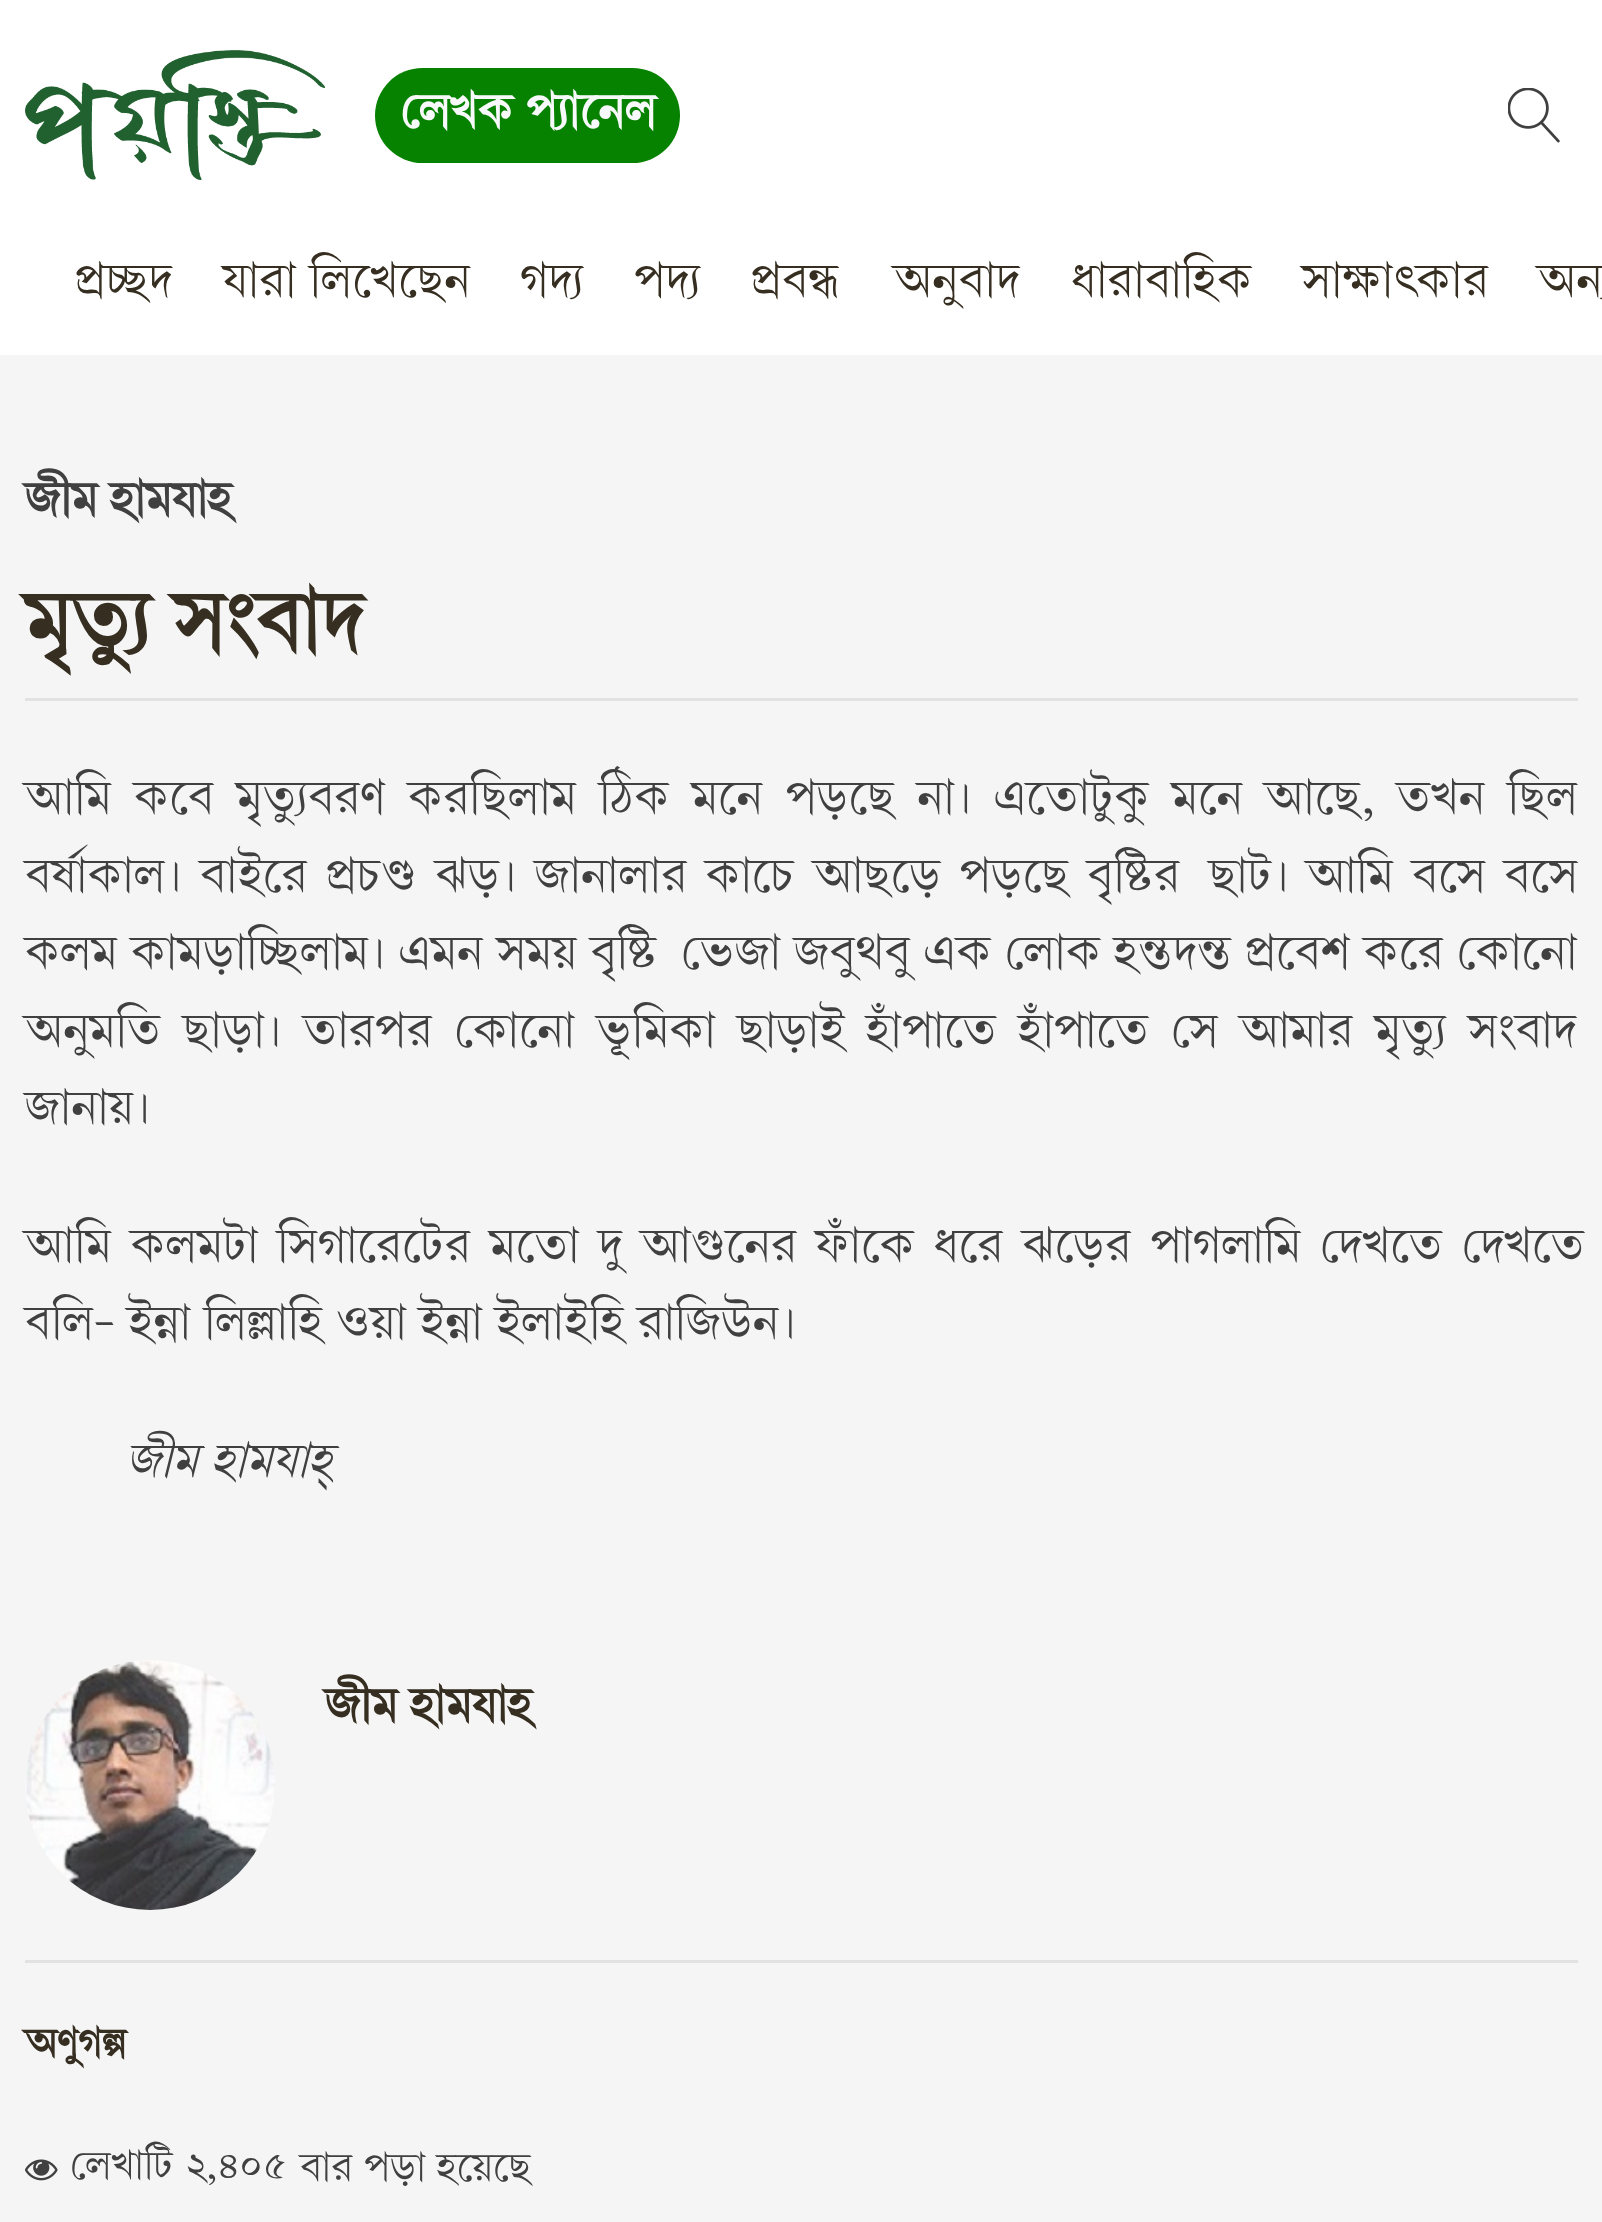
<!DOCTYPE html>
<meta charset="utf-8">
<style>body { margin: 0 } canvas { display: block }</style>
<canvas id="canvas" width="1602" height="2222"></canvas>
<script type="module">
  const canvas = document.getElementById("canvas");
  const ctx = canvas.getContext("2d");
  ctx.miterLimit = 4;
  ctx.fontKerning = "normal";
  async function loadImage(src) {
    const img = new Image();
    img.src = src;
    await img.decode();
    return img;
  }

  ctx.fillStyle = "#ffffff";
  ctx.fillRect(0, 0, 1602, 2222);
  ctx.drawImage(await loadImage("img1.png"), 1508, 88, 52, 55);
  ctx.drawImage(await loadImage("img2.png"), 25, 50, 300, 130);
  ctx.fillStyle = "#068200";
  ctx.beginPath();
  ctx.roundRect(375, 68, 305, 95, 47.5);
  ctx.fill();
  ctx.font = "bold 60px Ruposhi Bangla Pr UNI";
  ctx.fillStyle = "#f8f9fa";
  ctx.fillText("লেখক প্যানেল", 400, 129);
  ctx.font = "60px Ruposhi Bangla Pr UNI";
  ctx.fillStyle = "#352e21";
  ctx.fillText("প্রচ্ছদ", 75, 298);
  ctx.fillText("যারা লিখেছেন", 223, 298);
  ctx.fillText("গদ্য", 520, 298);
  ctx.fillText("পদ্য", 634, 298);
  ctx.fillText("প্রবন্ধ", 751, 298);
  ctx.fillText("অনুবাদ", 894, 298);
  ctx.fillText("ধারাবাহিক", 1071, 298);
  ctx.fillText("সাক্ষাৎকার", 1302, 298);
  ctx.fillText("অন্য", 1538, 298);
  ctx.fillStyle = "#f5f5f5";
  ctx.fillRect(0, 355, 1602, 1867);
  ctx.fillStyle = "#e2e2e2";
  ctx.fillRect(25, 698, 1553, 3);
  ctx.font = "bold 60px Ruposhi Bangla Pr UNI";
  ctx.fillStyle = "#404040";
  ctx.fillText("জীম হামযাহ", 25, 517);
  ctx.font = "bold 105px Ruposhi Bangla Pr UNI";
  ctx.fillStyle = "#352e21";
  ctx.fillText("মৃত্যু সংবাদ", 25, 653);
  ctx.wordSpacing = "9.4px";
  ctx.font = "60px Ruposhi Bangla Pr UNI";
  ctx.fillStyle = "#404040";
  ctx.fillText("আমি কবে মৃত্যুবরণ করছিলাম ঠিক মনে পড়ছে না। এতোটুকু মনে আছে, তখন ছিল", 25, 815);
  ctx.wordSpacing = "5.25px";
  ctx.fillText("বর্ষাকাল। বাইরে প্রচণ্ড ঝড়। জানালার কাচে", 25, 893);
  ctx.fillText("আছড়ে পড়ছে বৃষ্টির", 814, 893);
  ctx.fillText("ছাট। আমি বসে বসে", 1209, 893);
  ctx.wordSpacing = "0.3px";
  ctx.fillText("কলম কামড়াচ্ছিলাম। এমন সময় বৃষ্টি", 25, 970);
  ctx.fillText("ভেজা জবুথবু এক লোক হন্তদন্ত প্রবেশ করে কোনো", 681, 970);
  ctx.wordSpacing = "8.75px";
  ctx.fillText("অনুমতি ছাড়া। তারপর কোনো ভূমিকা ছাড়াই হাঁপাতে হাঁপাতে সে আমার মৃত্যু সংবাদ", 25, 1048);
  ctx.wordSpacing = "0px";
  ctx.fillText("জানায়।", 25, 1125);
  ctx.wordSpacing = "5.75px";
  ctx.fillText("আমি কলমটা সিগারেটের মতো দু আগুনের ফাঁকে ধরে ঝড়ের পাগলামি দেখতে দেখতে", 25, 1263);
  ctx.wordSpacing = "0px";
  ctx.fillText("বলি- ইন্না লিল্লাহি ওয়া ইন্না ইলাইহি রাজিউন।", 25, 1340);
  ctx.font = "italic 60px Ruposhi Bangla Pr UNI";
  ctx.fillText("জীম হামযাহ্", 125, 1478);
  ctx.drawImage(await loadImage("img3.png"), 25, 1660, 250, 250);
  ctx.font = "bold 60px Ruposhi Bangla Pr UNI";
  ctx.fillStyle = "#352e21";
  ctx.fillText("জীম হামযাহ", 325, 1723);
  ctx.fillStyle = "#e2e2e2";
  ctx.fillRect(25, 1960, 1553, 3);
  ctx.font = "bold 50px Ruposhi Bangla Pr UNI";
  ctx.fillStyle = "#352e21";
  ctx.fillText("অণুগল্প", 25, 2058);
  ctx.drawImage(await loadImage("img4.png"), 25, 2159, 33, 22);
  ctx.font = "50px Ruposhi Bangla Pr UNI";
  ctx.fillStyle = "#404040";
  ctx.fillText("লেখাটি ২,৪০৫", 70, 2180);
  ctx.fillText("বার পড়া হয়েছে", 300, 2182);
</script>
